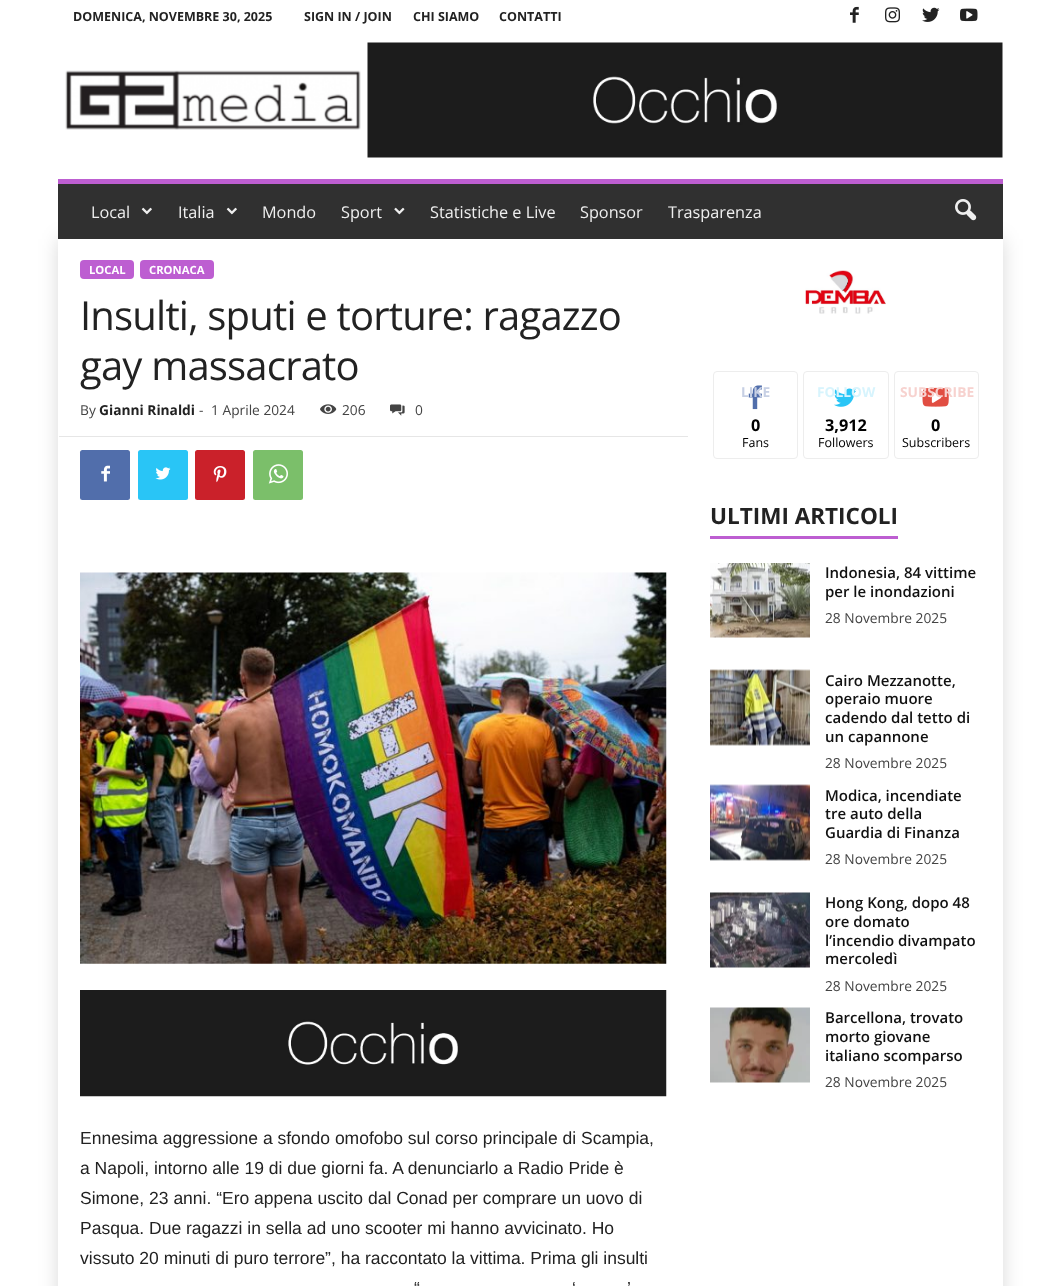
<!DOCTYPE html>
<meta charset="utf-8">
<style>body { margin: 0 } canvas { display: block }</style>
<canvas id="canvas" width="1059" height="1286"></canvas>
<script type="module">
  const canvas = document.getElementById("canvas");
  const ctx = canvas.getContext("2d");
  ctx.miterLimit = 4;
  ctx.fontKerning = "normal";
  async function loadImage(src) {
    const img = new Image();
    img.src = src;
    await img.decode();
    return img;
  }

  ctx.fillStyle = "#ffffff";
  ctx.fillRect(0, 0, 1059, 1286);
  ctx.font = "bold 12.5px Open Sans";
  ctx.fillStyle = "#222222";
  ctx.fillText("DOMENICA, NOVEMBRE 30, 2025", 73, 21);
  ctx.fillText("SIGN IN / JOIN", 304, 21);
  ctx.fillText("CHI SIAMO", 413, 21);
  ctx.fillText("CONTATTI", 499, 21);
  ctx.drawImage(await loadImage("img1.png"), 850, 6, 9, 17);
  ctx.drawImage(await loadImage("img2.png"), 885, 7, 15, 16);
  ctx.drawImage(await loadImage("img3.png"), 922, 7, 18, 15);
  ctx.drawImage(await loadImage("img4.png"), 960, 8, 18, 14);
  ctx.drawImage(await loadImage("img5.png"), 65, 70, 296, 60);
  ctx.drawImage(await loadImage("img6.png"), 367, 42, 636, 116);
  ctx.fillStyle = "rgba(0, 0, 0, 0.15)";
  ctx.filter = "blur(9.5px)";
  ctx.beginPath();
  ctx.rect(58, 239, 945, 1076);
  ctx.fill();
  ctx.filter = "none";
  ctx.fillStyle = "#303030";
  ctx.fillRect(58, 184, 945, 55);
  ctx.fillStyle = "#bd5ed1";
  ctx.fillRect(58, 179, 945, 5);
  ctx.font = "16.25px Open Sans";
  ctx.fillStyle = "#efefef";
  ctx.fillText("Local", 91, 218);
  ctx.drawImage(await loadImage("img7.png"), 141, 207, 11, 8);
  ctx.fillText("Italia", 178, 218);
  ctx.drawImage(await loadImage("img7.png"), 226, 207, 11, 8);
  ctx.fillText("Mondo", 262, 218);
  ctx.fillText("Sport", 341, 218);
  ctx.drawImage(await loadImage("img8.png"), 394, 207, 11, 8);
  ctx.fillText("Statistiche e Live", 430, 218);
  ctx.fillText("Sponsor", 580, 218);
  ctx.fillText("Trasparenza", 668, 218);
  ctx.drawImage(await loadImage("img9.png"), 955, 199, 22, 22);
  ctx.fillStyle = "#ffffff";
  ctx.fillRect(58, 239, 945, 1047);
  ctx.fillStyle = "#bd5ed1";
  ctx.beginPath();
  ctx.roundRect(80, 260, 54, 19, 4);
  ctx.fill();
  ctx.font = "bold 11.25px Open Sans";
  ctx.fillStyle = "#ffffff";
  ctx.fillText("LOCAL", 89, 274);
  ctx.fillStyle = "#bd5ed1";
  ctx.beginPath();
  ctx.roundRect(140, 260, 74, 19, 4);
  ctx.fill();
  ctx.fillStyle = "#ffffff";
  ctx.fillText("CRONACA", 149, 274);
  ctx.letterSpacing = "-0.8px";
  ctx.font = "40px Open Sans";
  ctx.fillStyle = "#222222";
  ctx.fillText("Insulti, sputi e torture: ragazzo", 80, 330);
  ctx.fillText("gay massacrato", 80, 380);
  ctx.letterSpacing = "0px";
  ctx.font = "13.75px Open Sans";
  ctx.fillStyle = "#444444";
  ctx.fillText("By", 80, 415);
  ctx.font = "bold 13.75px Open Sans";
  ctx.fillStyle = "#222222";
  ctx.fillText("Gianni Rinaldi", 99, 415);
  ctx.font = "13.75px Open Sans";
  ctx.fillStyle = "#444444";
  ctx.fillText("-", 199, 415);
  ctx.fillText("1 Aprile 2024", 211, 415);
  ctx.drawImage(await loadImage("img10.png"), 320, 404, 17, 10);
  ctx.fillText("206", 342, 415);
  ctx.drawImage(await loadImage("img11.png"), 390, 404, 15, 12);
  ctx.fillText("0", 415, 415);
  ctx.fillStyle = "#e6e6e6";
  ctx.fillRect(59, 436, 629, 1);
  ctx.fillStyle = "#516eab";
  ctx.beginPath();
  ctx.roundRect(80, 450, 50, 50, 2.5);
  ctx.fill();
  ctx.drawImage(await loadImage("img12.png"), 101, 465, 9, 17);
  ctx.fillStyle = "#29c5f6";
  ctx.beginPath();
  ctx.roundRect(138, 450, 50, 50, 2.5);
  ctx.fill();
  ctx.drawImage(await loadImage("img13.png"), 155, 467, 16, 13);
  ctx.fillStyle = "#ca212a";
  ctx.beginPath();
  ctx.roundRect(195, 450, 50, 50, 2.5);
  ctx.fill();
  ctx.drawImage(await loadImage("img14.png"), 213, 466, 14, 17);
  ctx.fillStyle = "#7bbf6a";
  ctx.beginPath();
  ctx.roundRect(253, 450, 50, 50, 2.5);
  ctx.fill();
  ctx.drawImage(await loadImage("img15.png"), 268, 464, 20, 20);
  ctx.drawImage(await loadImage("img16.png"), 80, 572, 587, 392);
  ctx.drawImage(await loadImage("img17.png"), 80, 990, 587, 107);
  ctx.font = "17.5px Liberation Sans";
  ctx.fillStyle = "#222222";
  ctx.fillText("Ennesima aggressione a sfondo omofobo sul corso principale di Scampia,", 80, 1144);
  ctx.fillText("a Napoli, intorno alle 19 di due giorni fa. A denunciarlo a Radio Pride è", 80, 1174);
  ctx.fillText("Simone, 23 anni. “Ero appena uscito dal Conad per comprare un uovo di", 80, 1204);
  ctx.fillText("Pasqua. Due ragazzi in sella ad uno scooter mi hanno avvicinato. Ho", 80, 1234);
  ctx.fillText("vissuto 20 minuti di puro terrore”, ha raccontato la vittima. Prima gli insulti", 80, 1264);
  ctx.fillText("“", 414, 1294);
  ctx.fillText("‘", 572, 1294);
  ctx.fillText("’", 627, 1294);
  ctx.drawImage(await loadImage("img18.png"), 805, 270, 81, 44);
  ctx.beginPath();
  ctx.roundRect(713.5, 371.5, 84, 87, 3.5);
  ctx.strokeStyle = "#ededed";
  ctx.stroke();
  ctx.drawImage(await loadImage("img19.png"), 748, 385, 14, 25);
  ctx.font = "bold 13.75px Open Sans";
  ctx.fillStyle = "#c7d0e4";
  ctx.fillText("LIKE", 741, 397);
  ctx.font = "bold 16.25px Open Sans";
  ctx.fillStyle = "#000000";
  ctx.fillText("0", 751, 431);
  ctx.font = "12.5px Open Sans";
  ctx.fillText("Fans", 742, 447);
  ctx.beginPath();
  ctx.roundRect(803.5, 371.5, 85, 87, 3.5);
  ctx.stroke();
  ctx.drawImage(await loadImage("img20.png"), 834, 388, 23, 19);
  ctx.font = "bold 13.75px Open Sans";
  ctx.fillStyle = "#d7f4fd";
  ctx.fillText("FOLLOW", 817, 397);
  ctx.font = "bold 16.25px Open Sans";
  ctx.fillStyle = "#000000";
  ctx.fillText("3,912", 825, 431);
  ctx.font = "12.5px Open Sans";
  ctx.fillText("Followers", 818, 447);
  ctx.beginPath();
  ctx.roundRect(894.5, 371.5, 84, 87, 3.5);
  ctx.stroke();
  ctx.drawImage(await loadImage("img21.png"), 922, 387, 27, 20);
  ctx.font = "bold 13.75px Open Sans";
  ctx.fillStyle = "#f7d2cf";
  ctx.fillText("SUBSCRIBE", 900, 397);
  ctx.font = "bold 16.25px Open Sans";
  ctx.fillStyle = "#000000";
  ctx.fillText("0", 931, 431);
  ctx.font = "12.5px Open Sans";
  ctx.fillText("Subscribers", 902, 447);
  ctx.font = "bold 22.5px Open Sans";
  ctx.fillStyle = "#222222";
  ctx.fillText("ULTIMI ARTICOLI", 710, 524);
  ctx.fillStyle = "#bd5ed1";
  ctx.fillRect(710, 536, 188, 3);
  ctx.drawImage(await loadImage("img22.png"), 710, 563, 100, 75);
  ctx.font = "600 15px Open Sans";
  ctx.fillStyle = "#111111";
  ctx.fillText("Indonesia, 84 vittime", 825, 578);
  ctx.fillText("per le inondazioni", 825, 597);
  ctx.font = "13.75px Open Sans";
  ctx.fillStyle = "#444444";
  ctx.fillText("28 Novembre 2025", 825, 623);
  ctx.drawImage(await loadImage("img23.png"), 710, 669, 100, 77);
  ctx.font = "600 15px Open Sans";
  ctx.fillStyle = "#111111";
  ctx.fillText("Cairo Mezzanotte,", 825, 686);
  ctx.fillText("operaio muore", 825, 704);
  ctx.fillText("cadendo dal tetto di", 825, 723);
  ctx.fillText("un capannone", 825, 742);
  ctx.font = "13.75px Open Sans";
  ctx.fillStyle = "#444444";
  ctx.fillText("28 Novembre 2025", 825, 768);
  ctx.drawImage(await loadImage("img24.png"), 710, 784, 100, 77);
  ctx.font = "600 15px Open Sans";
  ctx.fillStyle = "#111111";
  ctx.fillText("Modica, incendiate", 825, 801);
  ctx.fillText("tre auto della", 825, 819);
  ctx.fillText("Guardia di Finanza", 825, 838);
  ctx.font = "13.75px Open Sans";
  ctx.fillStyle = "#444444";
  ctx.fillText("28 Novembre 2025", 825, 864);
  ctx.drawImage(await loadImage("img25.png"), 710, 892, 100, 76);
  ctx.font = "600 15px Open Sans";
  ctx.fillStyle = "#111111";
  ctx.fillText("Hong Kong, dopo 48", 825, 908);
  ctx.fillText("ore domato", 825, 927);
  ctx.fillText("l’incendio divampato", 825, 946);
  ctx.fillText("mercoledì", 825, 964);
  ctx.font = "13.75px Open Sans";
  ctx.fillStyle = "#444444";
  ctx.fillText("28 Novembre 2025", 825, 991);
  ctx.drawImage(await loadImage("img26.png"), 710, 1007, 100, 76);
  ctx.font = "600 15px Open Sans";
  ctx.fillStyle = "#111111";
  ctx.fillText("Barcellona, trovato", 825, 1023);
  ctx.fillText("morto giovane", 825, 1042);
  ctx.fillText("italiano scomparso", 825, 1061);
  ctx.font = "13.75px Open Sans";
  ctx.fillStyle = "#444444";
  ctx.fillText("28 Novembre 2025", 825, 1087);
</script>
